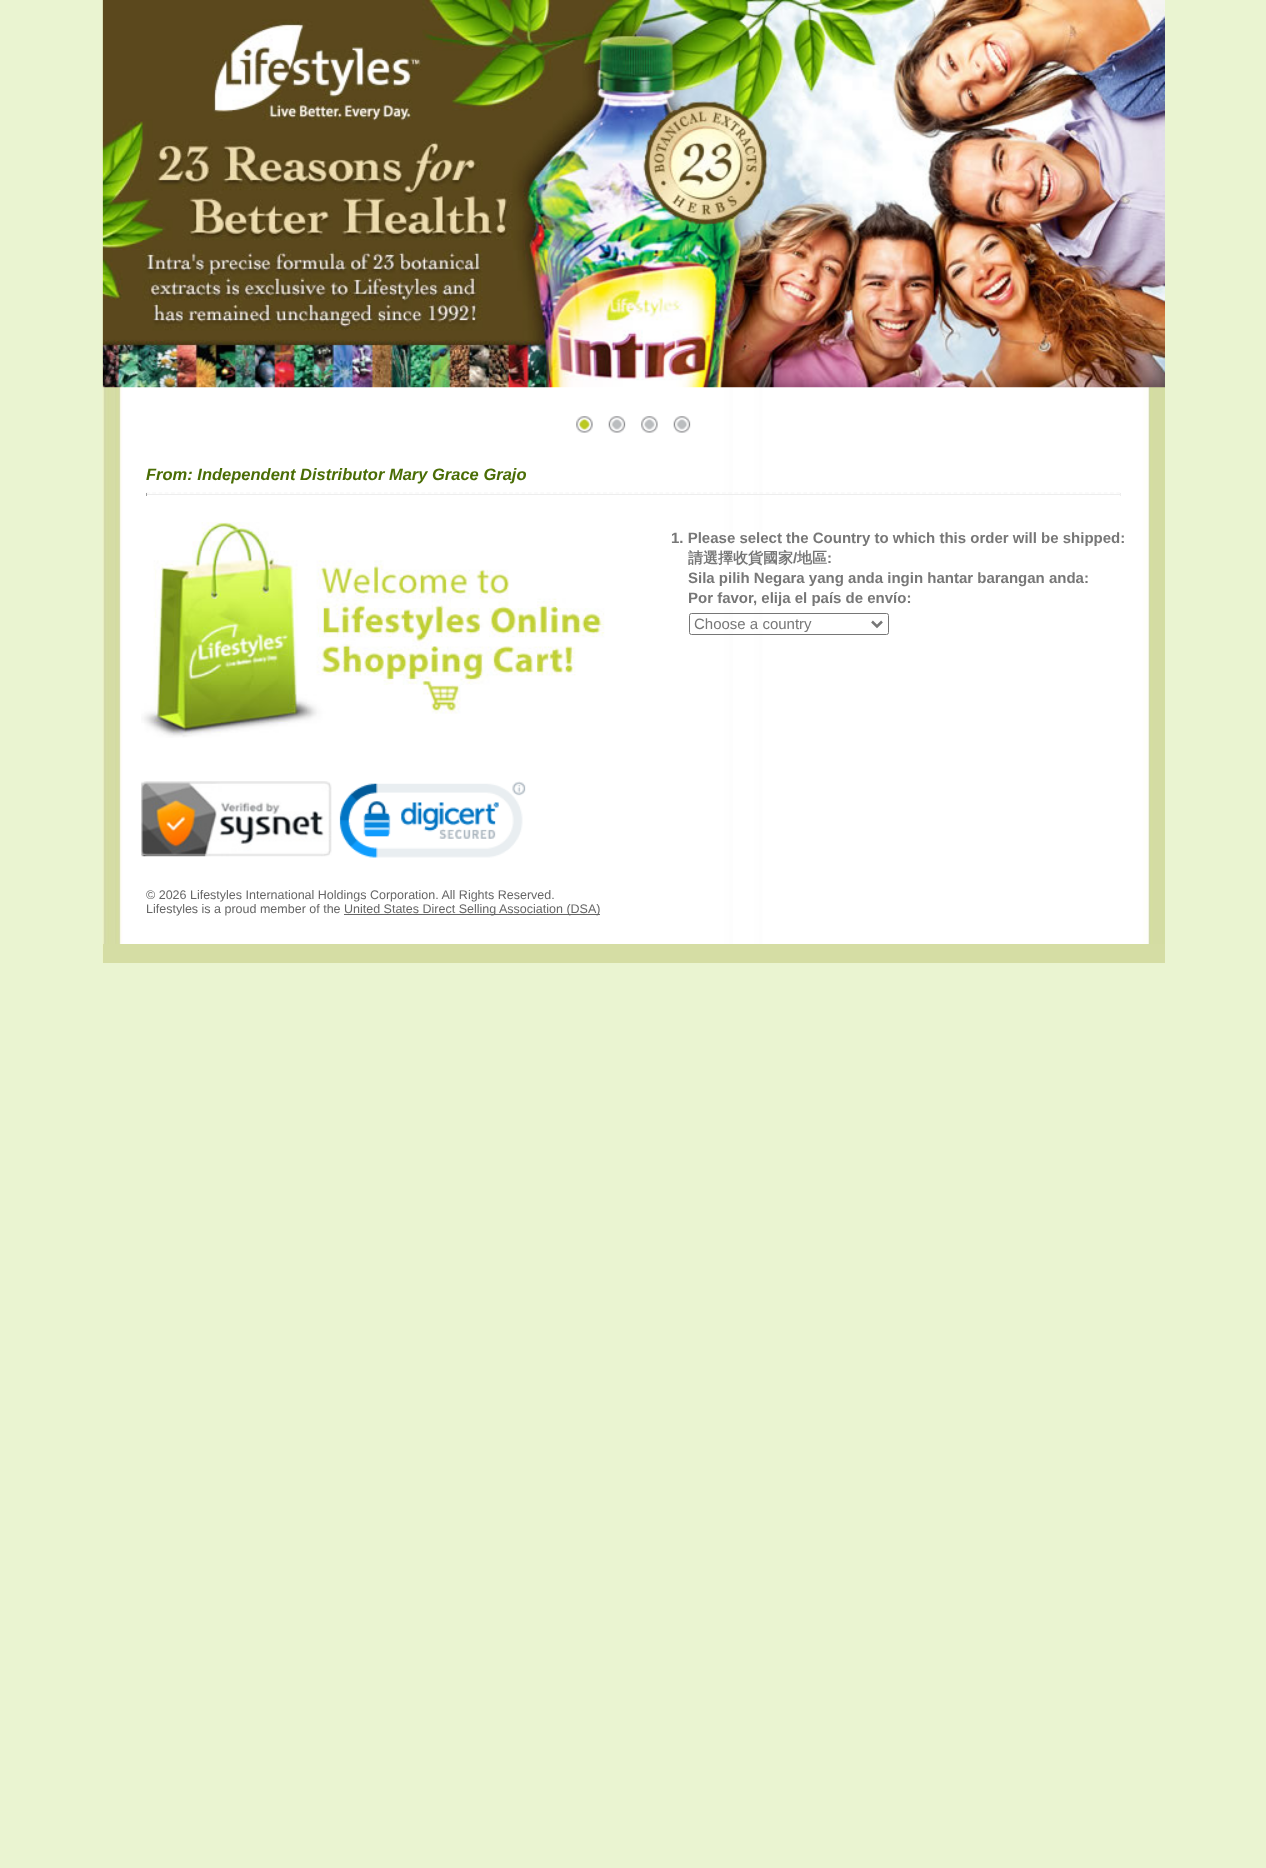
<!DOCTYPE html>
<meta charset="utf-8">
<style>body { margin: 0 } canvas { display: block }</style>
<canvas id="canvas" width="1266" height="1868"></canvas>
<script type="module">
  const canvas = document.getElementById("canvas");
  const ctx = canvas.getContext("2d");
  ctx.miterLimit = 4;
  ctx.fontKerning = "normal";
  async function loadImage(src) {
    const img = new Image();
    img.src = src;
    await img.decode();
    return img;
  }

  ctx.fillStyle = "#eaf4d1";
  ctx.fillRect(0, 0, 1266, 1868);
  ctx.drawImage(await loadImage("img1.png"), 102, 0, 1063, 963);
  ctx.fillStyle = "#d5dda4";
  ctx.fillRect(103, 944, 1062, 19);
  ctx.drawImage(await loadImage("img2.png"), 102, 0, 1063, 388);
  ctx.drawImage(await loadImage("img3.png"), 576, 416, 17, 17);
  ctx.drawImage(await loadImage("img4.png"), 608, 416, 18, 17);
  ctx.drawImage(await loadImage("img5.png"), 641, 416, 17, 17);
  ctx.drawImage(await loadImage("img4.png"), 673, 416, 18, 17);
  ctx.font = "italic bold 16.5px Liberation Sans";
  ctx.fillStyle = "#4a6d05";
  ctx.fillText("From: Independent Distributor Mary Grace Grajo", 146, 480);
  ctx.beginPath();
  ctx.moveTo(146, 493);
  ctx.lineTo(1121, 493);
  ctx.strokeStyle = "#f5f5f5";
  ctx.lineWidth = 1.2;
  ctx.setLineDash([3.75, 2.51]);
  ctx.stroke();
  ctx.fillStyle = "#eeeeee";
  ctx.fillRect(1120, 493, 1, 3);
  ctx.fillRect(146, 494, 975, 1);
  ctx.fillStyle = "#9f9f9f";
  ctx.fillRect(146, 493, 1, 3);
  ctx.drawImage(await loadImage("img6.png"), 141, 522, 464, 216);
  ctx.font = "bold 15px Liberation Sans";
  ctx.fillStyle = "#777777";
  ctx.fillText("1. Please select the Country to which this order will be shipped:", 671, 543);
  ctx.font = "bold 15px WenQuanYi Zen Hei";
  ctx.fillText("請選擇收貨國家", 688, 563);
  ctx.font = "bold 15px Liberation Sans";
  ctx.fillText("/", 793, 563);
  ctx.font = "bold 15px WenQuanYi Zen Hei";
  ctx.fillText("地區", 797, 563);
  ctx.font = "bold 15px Liberation Sans";
  ctx.fillText(":", 827, 563);
  ctx.fillText("Sila pilih Negara yang anda ingin hantar barangan anda:", 688, 583);
  ctx.fillText("Por favor, elija el país de envío:", 688, 603);
  ctx.beginPath();
  ctx.roundRect(689.5, 613.5, 199, 21, 2);
  ctx.strokeStyle = "#767676";
  ctx.lineWidth = 1;
  ctx.setLineDash([]);
  ctx.stroke();
  ctx.beginPath();
  ctx.moveTo(872, 621.5);
  ctx.lineTo(877, 626.5);
  ctx.lineTo(882, 621.5);
  ctx.strokeStyle = "#777777";
  ctx.lineWidth = 2.5;
  ctx.stroke();
  ctx.font = "15px Liberation Sans";
  ctx.fillText("Choose a country", 694, 629);
  ctx.drawImage(await loadImage("img7.png"), 141, 781, 191, 76);
  ctx.drawImage(await loadImage("img8.png"), 339, 781, 187, 77);
  ctx.font = "12.5px Liberation Sans";
  ctx.fillStyle = "#666666";
  ctx.fillText("© 2026 Lifestyles International Holdings Corporation. All Rights Reserved.", 146, 899);
  ctx.fillText("Lifestyles is a proud member of the", 146, 913);
  ctx.fillRect(344, 914, 256, 1);
  ctx.fillText("United States Direct Selling", 344, 913);
  ctx.fillText("Association (DSA)", 499, 913);
</script>
